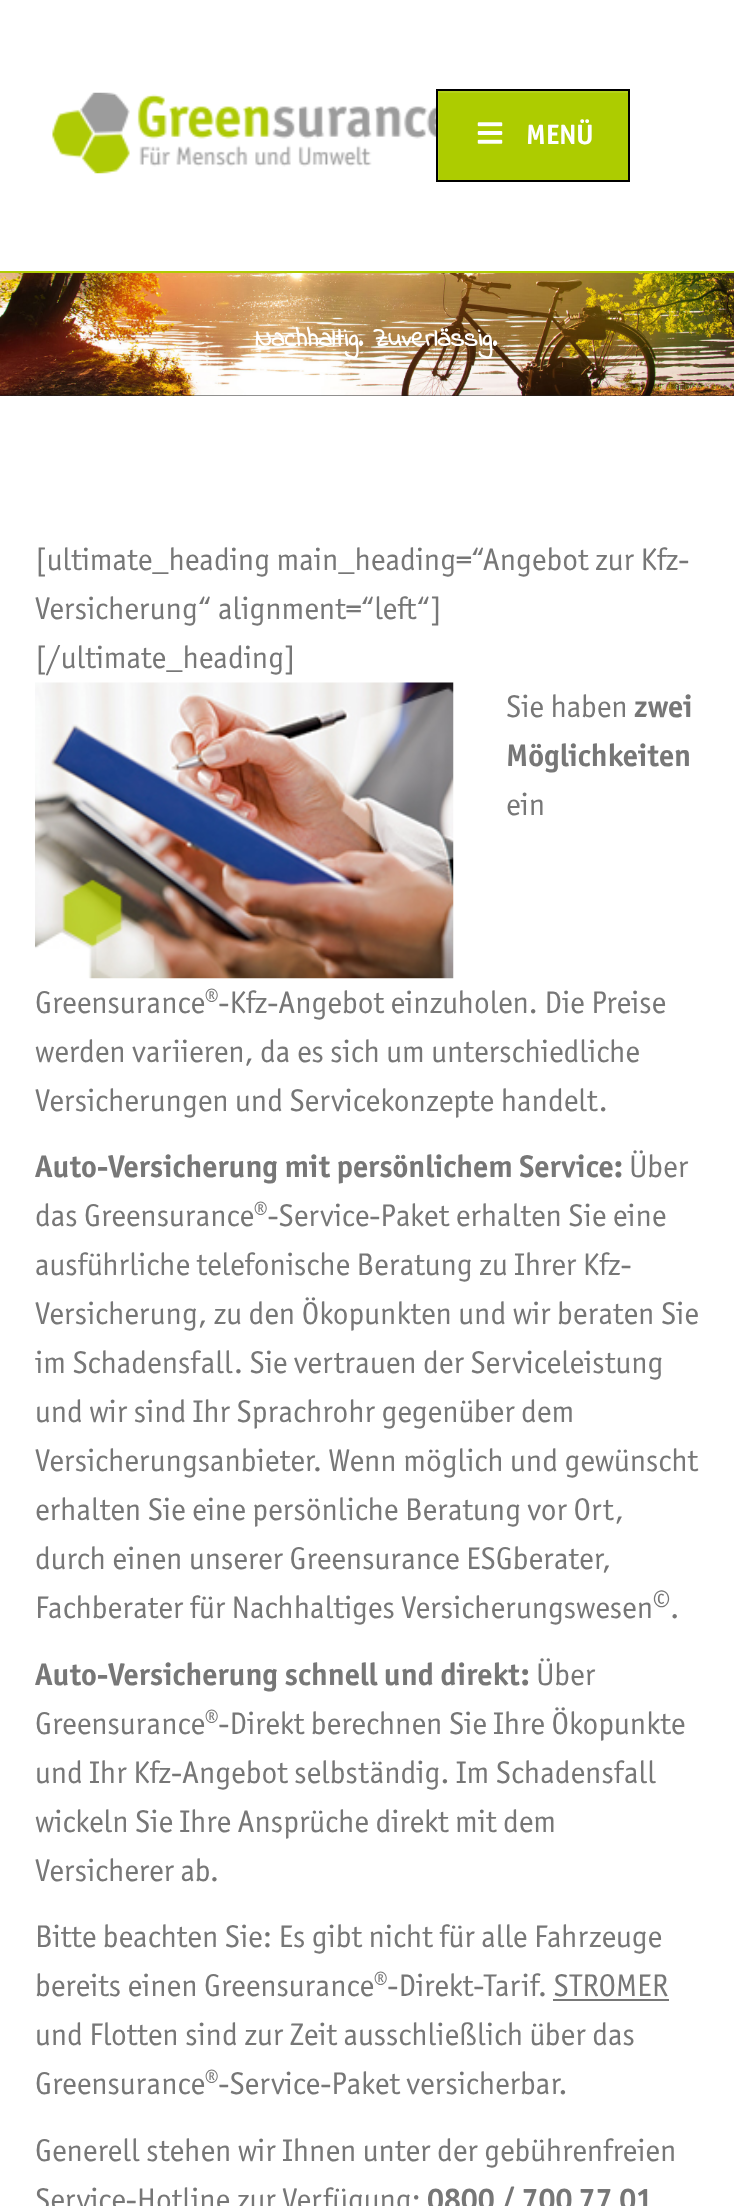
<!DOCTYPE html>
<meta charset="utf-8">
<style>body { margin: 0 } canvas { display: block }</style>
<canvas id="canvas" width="734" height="2206"></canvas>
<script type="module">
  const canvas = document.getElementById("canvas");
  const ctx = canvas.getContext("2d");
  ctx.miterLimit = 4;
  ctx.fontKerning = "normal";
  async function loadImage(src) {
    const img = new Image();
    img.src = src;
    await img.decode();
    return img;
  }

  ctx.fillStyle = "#ffffff";
  ctx.fillRect(0, 0, 734, 2206);
  ctx.fillStyle = "#afcb04";
  ctx.fillRect(0, 271, 734, 2);
  ctx.drawImage(await loadImage("img1.png"), 52, 92, 384, 82);
  ctx.fillStyle = "#adcc00";
  ctx.fillRect(439, 93, 189, 87);
  ctx.save();
  ctx.beginPath();
  ctx.rect(438, 91, 190, 89);
  ctx.clip();
  ctx.fillStyle = "#b5d11a";
  ctx.beginPath();
  ctx.moveTo(264, -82);
  ctx.lineTo(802, -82);
  ctx.lineTo(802, 354);
  ctx.lineTo(264, 354);
  ctx.closePath();
  ctx.moveTo(439, 93);
  ctx.lineTo(630, 93);
  ctx.lineTo(630, 182);
  ctx.lineTo(439, 182);
  ctx.closePath();
  ctx.fill("evenodd");
  ctx.restore();
  ctx.strokeStyle = "#000000";
  ctx.lineWidth = 2;
  ctx.strokeRect(437, 90, 192, 91);
  ctx.drawImage(await loadImage("img2.png"), 477, 122, 26, 22);
  ctx.font = "bold 28px 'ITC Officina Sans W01'";
  ctx.fillStyle = "#ffffff";
  ctx.fillText("MENÜ", 526, 144);
  ctx.fillStyle = "#222222";
  ctx.fillRect(0, 395, 734, 1);
  ctx.drawImage(await loadImage("img3.png"), 0, 273, 734, 123);
  ctx.font = "bold 26.25px Indie Flower";
  ctx.fillStyle = "#ffffff";
  ctx.fillText("Nachhaltig. Zuverlässig.", 255, 346);
  ctx.font = "31.5px 'ITC Officina Sans W01'";
  ctx.fillStyle = "#777777";
  ctx.fillText("[ultimate_heading main_heading=“Angebot zur Kfz-", 35, 570);
  ctx.fillText("Versicherung“ alignment=“left“]", 35, 619);
  ctx.fillText("[/ultimate_heading]", 35, 668);
  ctx.drawImage(await loadImage("img4.png"), 35, 682, 419, 297);
  ctx.fillText("Sie haben", 506, 717);
  ctx.font = "bold 31.5px 'ITC Officina Sans W01'";
  ctx.fillText("zwei", 634, 717);
  ctx.fillText("Möglichkeiten", 506, 766);
  ctx.font = "31.5px 'ITC Officina Sans W01'";
  ctx.fillText("ein", 506, 815);
  ctx.fillText("Greensurance®-Kfz-Angebot einzuholen. Die Preise", 35, 1013);
  ctx.fillText("werden variieren, da es sich um unterschiedliche", 35, 1062);
  ctx.fillText("Versicherungen und Servicekonzepte handelt.", 35, 1111);
  ctx.font = "bold 31.5px 'ITC Officina Sans W01'";
  ctx.fillText("Auto-Versicherung mit persönlichem Service:", 35, 1177);
  ctx.font = "31.5px 'ITC Officina Sans W01'";
  ctx.fillText("Über", 629, 1177);
  ctx.fillText("das Greensurance®-Service-Paket erhalten Sie eine", 35, 1226);
  ctx.fillText("ausführliche telefonische Beratung zu Ihrer Kfz-", 35, 1275);
  ctx.fillText("Versicherung, zu den Ökopunkten und wir beraten Sie", 35, 1324);
  ctx.fillText("im Schadensfall. Sie vertrauen der Serviceleistung", 35, 1373);
  ctx.fillText("und wir sind Ihr Sprachrohr gegenüber dem", 35, 1422);
  ctx.fillText("Versicherungsanbieter. Wenn möglich und gewünscht", 35, 1471);
  ctx.fillText("erhalten Sie eine persönliche Beratung vor Ort,", 35, 1520);
  ctx.fillText("durch einen unserer Greensurance ESGberater,", 35, 1569);
  ctx.fillText("Fachberater für Nachhaltiges Versicherungswesen", 35, 1618);
  ctx.font = "24px 'ITC Officina Sans W01'";
  ctx.fillText("©", 653, 1607);
  ctx.font = "31.5px 'ITC Officina Sans W01'";
  ctx.fillText(".", 670, 1618);
  ctx.font = "bold 31.5px 'ITC Officina Sans W01'";
  ctx.fillText("Auto-Versicherung schnell und direkt:", 35, 1685);
  ctx.font = "31.5px 'ITC Officina Sans W01'";
  ctx.fillText("Über", 536, 1685);
  ctx.fillText("Greensurance®-Direkt berechnen Sie Ihre Ökopunkte", 35, 1734);
  ctx.fillText("und Ihr Kfz-Angebot selbständig. Im Schadensfall", 35, 1783);
  ctx.fillText("wickeln Sie Ihre Ansprüche direkt mit dem", 35, 1832);
  ctx.fillText("Versicherer ab.", 35, 1881);
  ctx.fillText("Bitte beachten Sie: Es gibt nicht für alle Fahrzeuge", 35, 1947);
  ctx.fillText("bereits einen Greensurance®-Direkt-Tarif. STROMER", 35, 1996);
  ctx.fillRect(553, 1999, 116, 2);
  ctx.fillText("und Flotten sind zur Zeit ausschließlich über das", 35, 2045);
  ctx.fillText("Greensurance®-Service-Paket versicherbar.", 35, 2094);
  ctx.fillText("Generell stehen wir Ihnen unter der gebührenfreien", 35, 2161);
  ctx.fillText("Service-Hotline zur Verfügung:", 35, 2210);
  ctx.font = "bold 31.5px 'ITC Officina Sans W01'";
  ctx.fillText("0800 / 700 77 01", 427, 2210);
</script>
